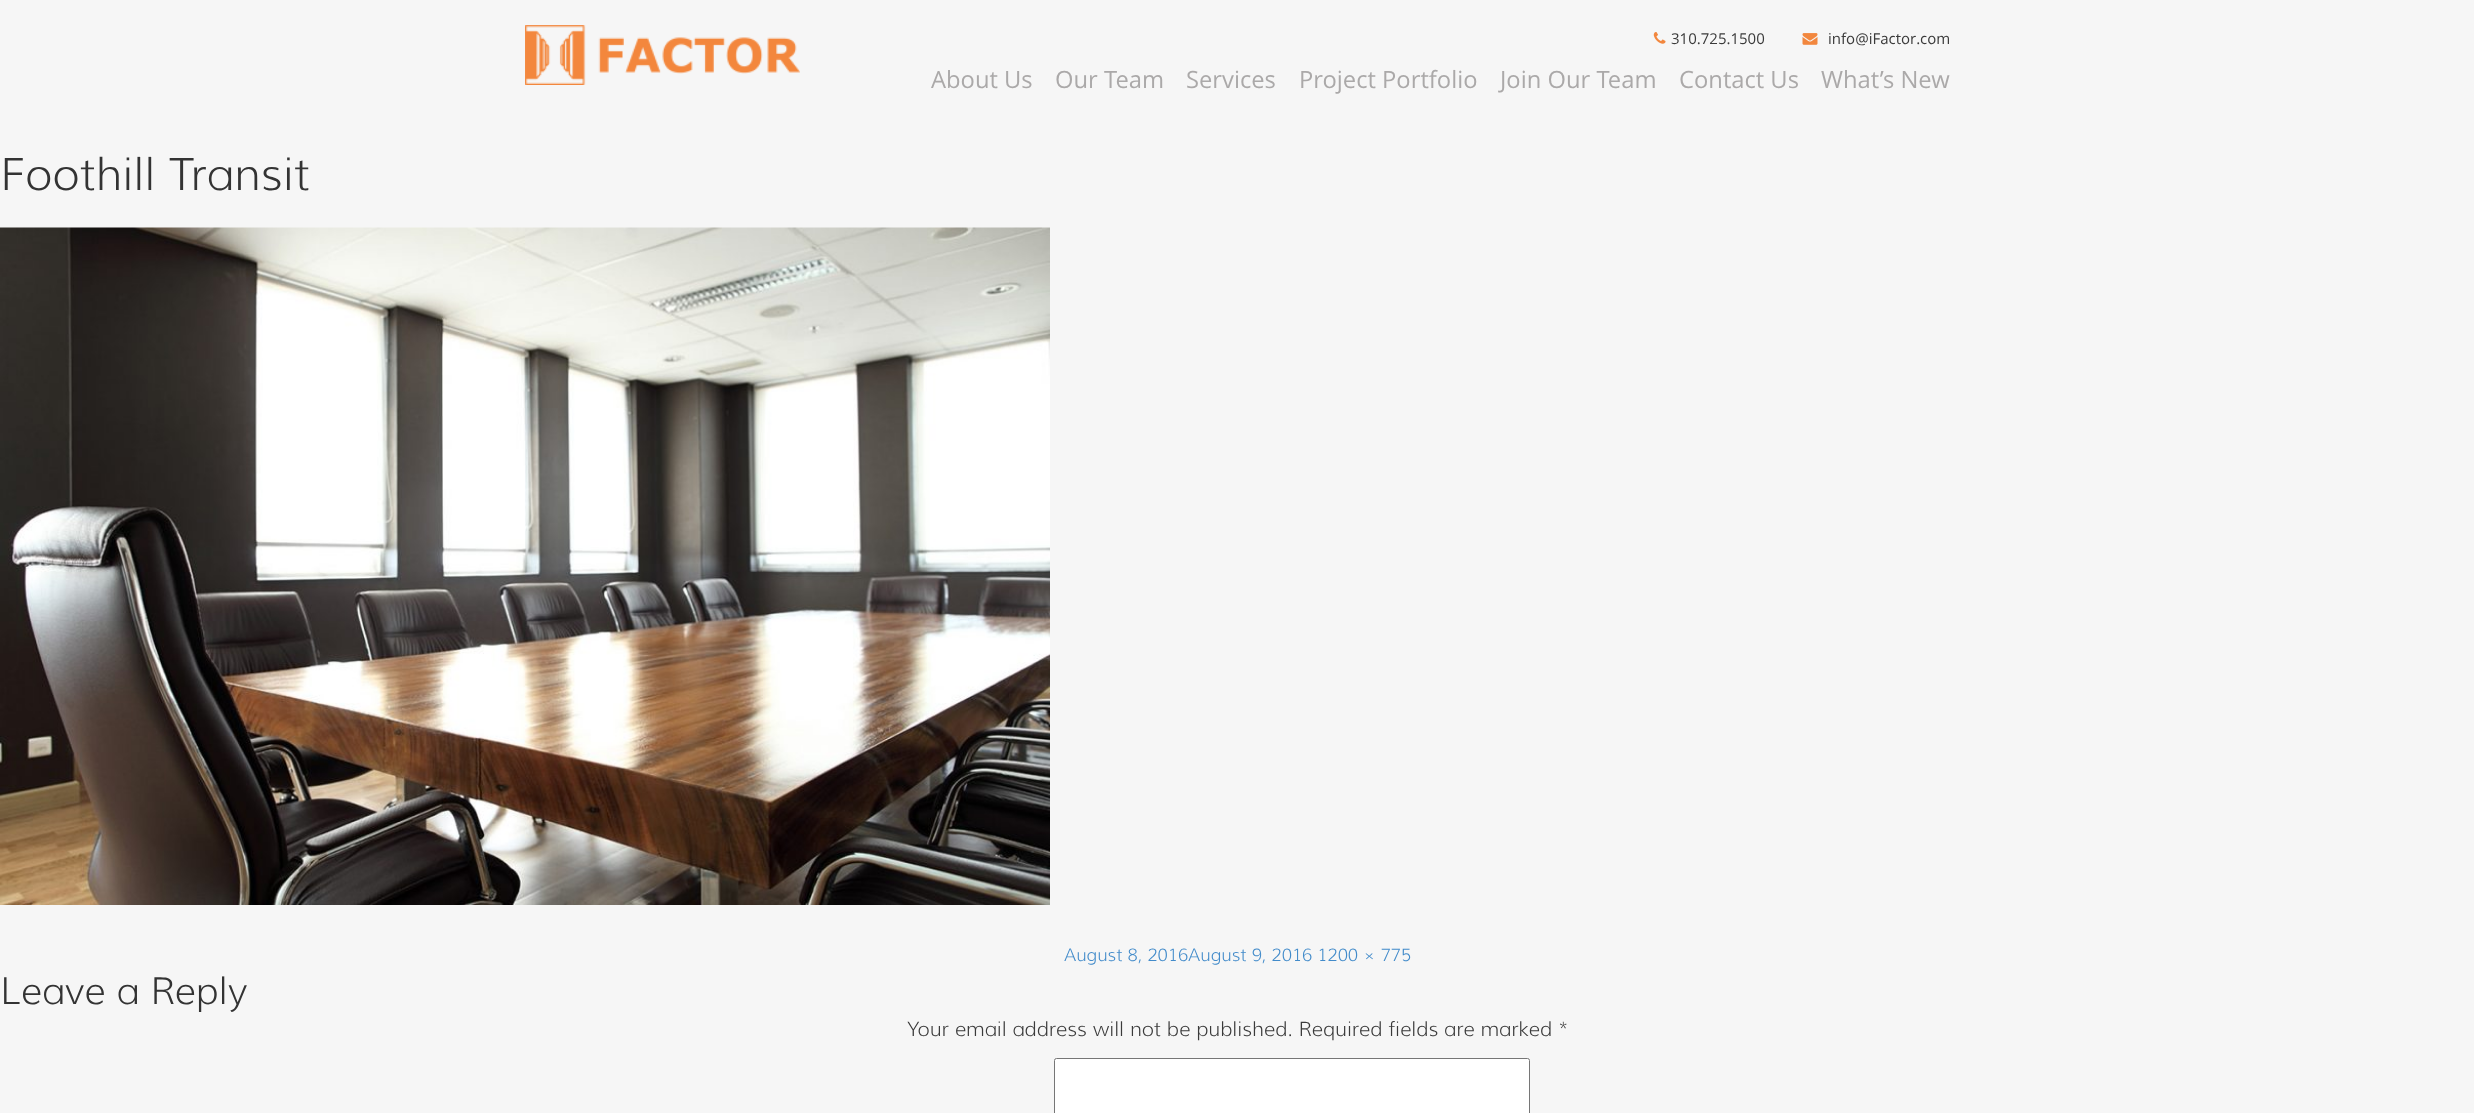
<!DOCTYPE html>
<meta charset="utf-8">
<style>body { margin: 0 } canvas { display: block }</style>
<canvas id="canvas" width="2474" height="1113"></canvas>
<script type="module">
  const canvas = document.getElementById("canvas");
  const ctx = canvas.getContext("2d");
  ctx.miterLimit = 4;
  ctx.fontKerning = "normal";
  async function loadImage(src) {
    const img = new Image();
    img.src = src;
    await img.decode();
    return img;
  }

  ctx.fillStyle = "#f6f6f6";
  ctx.fillRect(0, 0, 2474, 1113);
  ctx.drawImage(await loadImage("img1.png"), 525, 25, 275, 60);
  ctx.drawImage(await loadImage("img2.png"), 1653, 32, 13, 12);
  ctx.font = "15px Open Sans";
  ctx.fillStyle = "#3a3a3a";
  ctx.fillText("310.725.1500", 1671, 44);
  ctx.drawImage(await loadImage("img3.png"), 1802, 33, 16, 12);
  ctx.fillText("info@iFactor.com", 1828, 44);
  ctx.font = "23.75px Open Sans";
  ctx.fillStyle = "#aba9a9";
  ctx.fillText("About Us", 931, 88);
  ctx.fillText("Our Team", 1055, 88);
  ctx.fillText("Services", 1186, 88);
  ctx.fillText("Project Portfolio", 1299, 88);
  ctx.fillText("Join Our Team", 1500, 88);
  ctx.fillText("Contact Us", 1679, 88);
  ctx.fillText("What’s New", 1821, 88);
  ctx.font = "300 45px Muli";
  ctx.fillStyle = "#333333";
  ctx.fillText("Foothill Transit", 0, 190);
  ctx.drawImage(await loadImage("img4.png"), 0, 227, 1050, 678);
  ctx.font = "300 17.5px Muli";
  ctx.fillStyle = "#428bca";
  ctx.fillText("August 8, 2016August 9, 2016 1200 × 775", 1064, 961);
  ctx.font = "300 37.5px Muli";
  ctx.fillStyle = "#333333";
  ctx.fillText("Leave a Reply", 0, 1004);
  ctx.font = "300 20px Muli";
  ctx.fillStyle = "#3a3a3a";
  ctx.fillText("Your email address will not be published. Required fields are marked *", 907, 1036);
  ctx.fillStyle = "#ffffff";
  ctx.beginPath();
  ctx.roundRect(1054.5, 1058.5, 475, 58, 2);
  ctx.fill();
  ctx.strokeStyle = "#767676";
  ctx.stroke();
</script>
